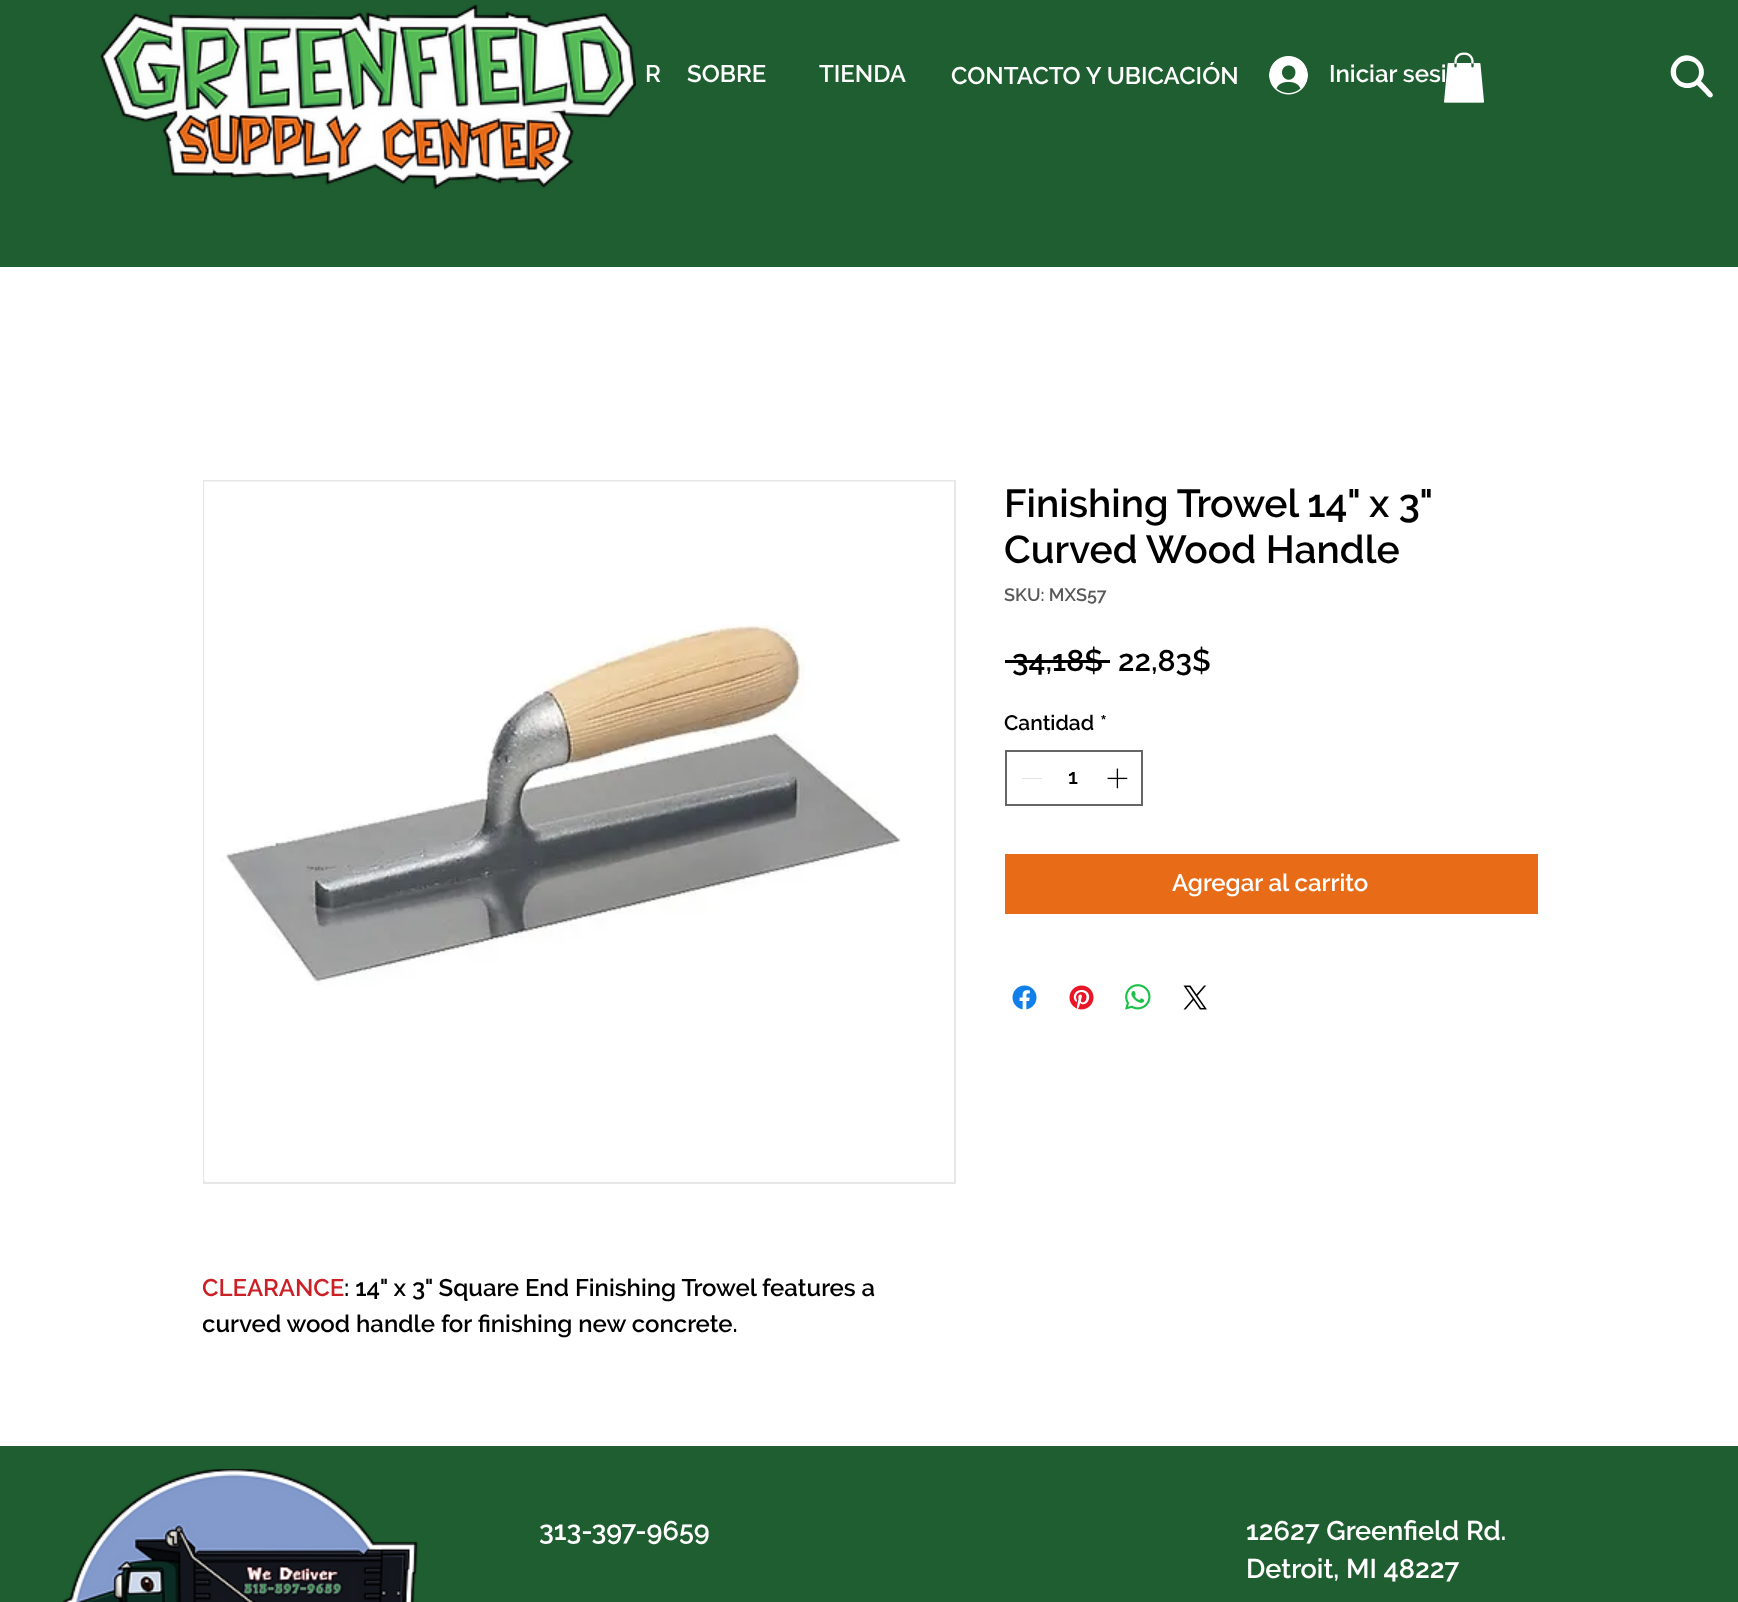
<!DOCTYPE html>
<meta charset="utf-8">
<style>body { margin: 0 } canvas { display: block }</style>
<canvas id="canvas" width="1738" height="1602"></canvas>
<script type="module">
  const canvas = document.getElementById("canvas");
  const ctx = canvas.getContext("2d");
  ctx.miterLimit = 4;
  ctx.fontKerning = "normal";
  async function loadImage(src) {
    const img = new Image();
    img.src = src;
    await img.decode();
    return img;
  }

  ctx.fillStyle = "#ffffff";
  ctx.fillRect(0, 0, 1738, 1602);
  ctx.fillStyle = "#1f5e30";
  ctx.fillRect(0, 0, 1738, 267);
  ctx.drawImage(await loadImage("img1.png"), 100, 4, 536, 185);
  ctx.font = "600 24px Raleway";
  ctx.fillStyle = "#ffffff";
  ctx.fillText("R", 645, 82);
  ctx.fillText("SOBRE", 687, 82);
  ctx.fillText("TIENDA", 819, 82);
  ctx.fillText("CONTACTO Y UBICACIÓN", 951, 84);
  ctx.drawImage(await loadImage("img2.png"), 1269, 56, 39, 39);
  ctx.fillText("Iniciar sesi", 1329, 82);
  ctx.drawImage(await loadImage("img3.png"), 1444, 52, 40, 51);
  ctx.beginPath();
  ctx.moveTo(1712, 93);
  ctx.lineTo(1701, 81);
  ctx.bezierCurveTo(1712, 66, 1690, 46, 1676, 60);
  ctx.bezierCurveTo(1661, 75, 1681, 96, 1697, 85);
  ctx.lineTo(1705, 93);
  ctx.bezierCurveTo(1706, 94, 1709, 99, 1712, 97);
  ctx.lineTo(1713, 95);
  ctx.closePath();
  ctx.moveTo(1676, 72);
  ctx.bezierCurveTo(1676, 57, 1699, 57, 1699, 72);
  ctx.bezierCurveTo(1699, 87, 1676, 87, 1676, 72);
  ctx.closePath();
  ctx.fill();
  ctx.wordSpacing = "-0.5px";
  ctx.font = "600 39px Raleway";
  ctx.fillStyle = "#000000";
  ctx.fillText("Finishing Trowel 14\" x 3\"", 1004, 517);
  ctx.wordSpacing = "0px";
  ctx.fillText("Curved Wood Handle", 1004, 563);
  ctx.font = "600 18px Raleway";
  ctx.fillStyle = "#595959";
  ctx.fillText("SKU: MXS57", 1004, 601);
  ctx.font = "600 30px Raleway";
  ctx.fillStyle = "#000000";
  ctx.fillText("34,18$", 1012, 671);
  ctx.fillRect(1005, 660, 105, 3);
  ctx.fillText("22,83$", 1118, 671);
  ctx.font = "600 21px Raleway";
  ctx.fillText("Cantidad", 1004, 730);
  ctx.fillText("*", 1100, 730);
  ctx.strokeStyle = "#666666";
  ctx.lineWidth = 2;
  ctx.strokeRect(1006, 751, 136, 54);
  ctx.fillStyle = "#e3e3e3";
  ctx.fillRect(1022, 778, 20, 1);
  ctx.fillStyle = "#000000";
  ctx.fillText("1", 1068, 784);
  ctx.drawImage(await loadImage("img4.png"), 1107, 768, 21, 21);
  ctx.fillStyle = "#e86b18";
  ctx.fillRect(1005, 854, 533, 60);
  ctx.font = "600 24px Raleway";
  ctx.fillStyle = "#ffffff";
  ctx.fillText("Agregar al carrito", 1172, 891);
  ctx.drawImage(await loadImage("img5.png"), 1012, 985, 25, 25);
  ctx.drawImage(await loadImage("img6.png"), 1069, 985, 25, 25);
  ctx.drawImage(await loadImage("img7.png"), 1125, 984, 26, 26);
  ctx.drawImage(await loadImage("img8.png"), 1183, 985, 24, 25);
  ctx.strokeStyle = "#e8e6e6";
  ctx.strokeRect(204, 481, 751, 702);
  ctx.drawImage(await loadImage("img9.png"), 204, 481, 750, 700);
  ctx.save();
  ctx.beginPath();
  ctx.rect(203, 1271, 750, 108);
  ctx.clip();
  ctx.fillStyle = "#cb2026";
  ctx.fillText("CLEARANCE", 202, 1296);
  ctx.restore();
  ctx.fillStyle = "#000000";
  ctx.fillText(": 14\" x 3\" Square End Finishing Trowel features a", 344, 1296);
  ctx.save();
  ctx.beginPath();
  ctx.rect(203, 1271, 750, 108);
  ctx.clip();
  ctx.fillText("curved wood handle for finishing new concrete.", 202, 1332);
  ctx.restore();
  ctx.fillStyle = "#1f5e30";
  ctx.fillRect(0, 1446, 1738, 156);
  ctx.drawImage(await loadImage("img10.png"), 62, 1469, 356, 133);
  ctx.font = "600 27px Raleway";
  ctx.fillStyle = "#ffffff";
  ctx.fillText("313-397-9659", 539, 1540);
  ctx.fillText("12627 Greenfield Rd.", 1246, 1540);
  ctx.fillText("Detroit, MI 48227", 1246, 1578);
</script>
